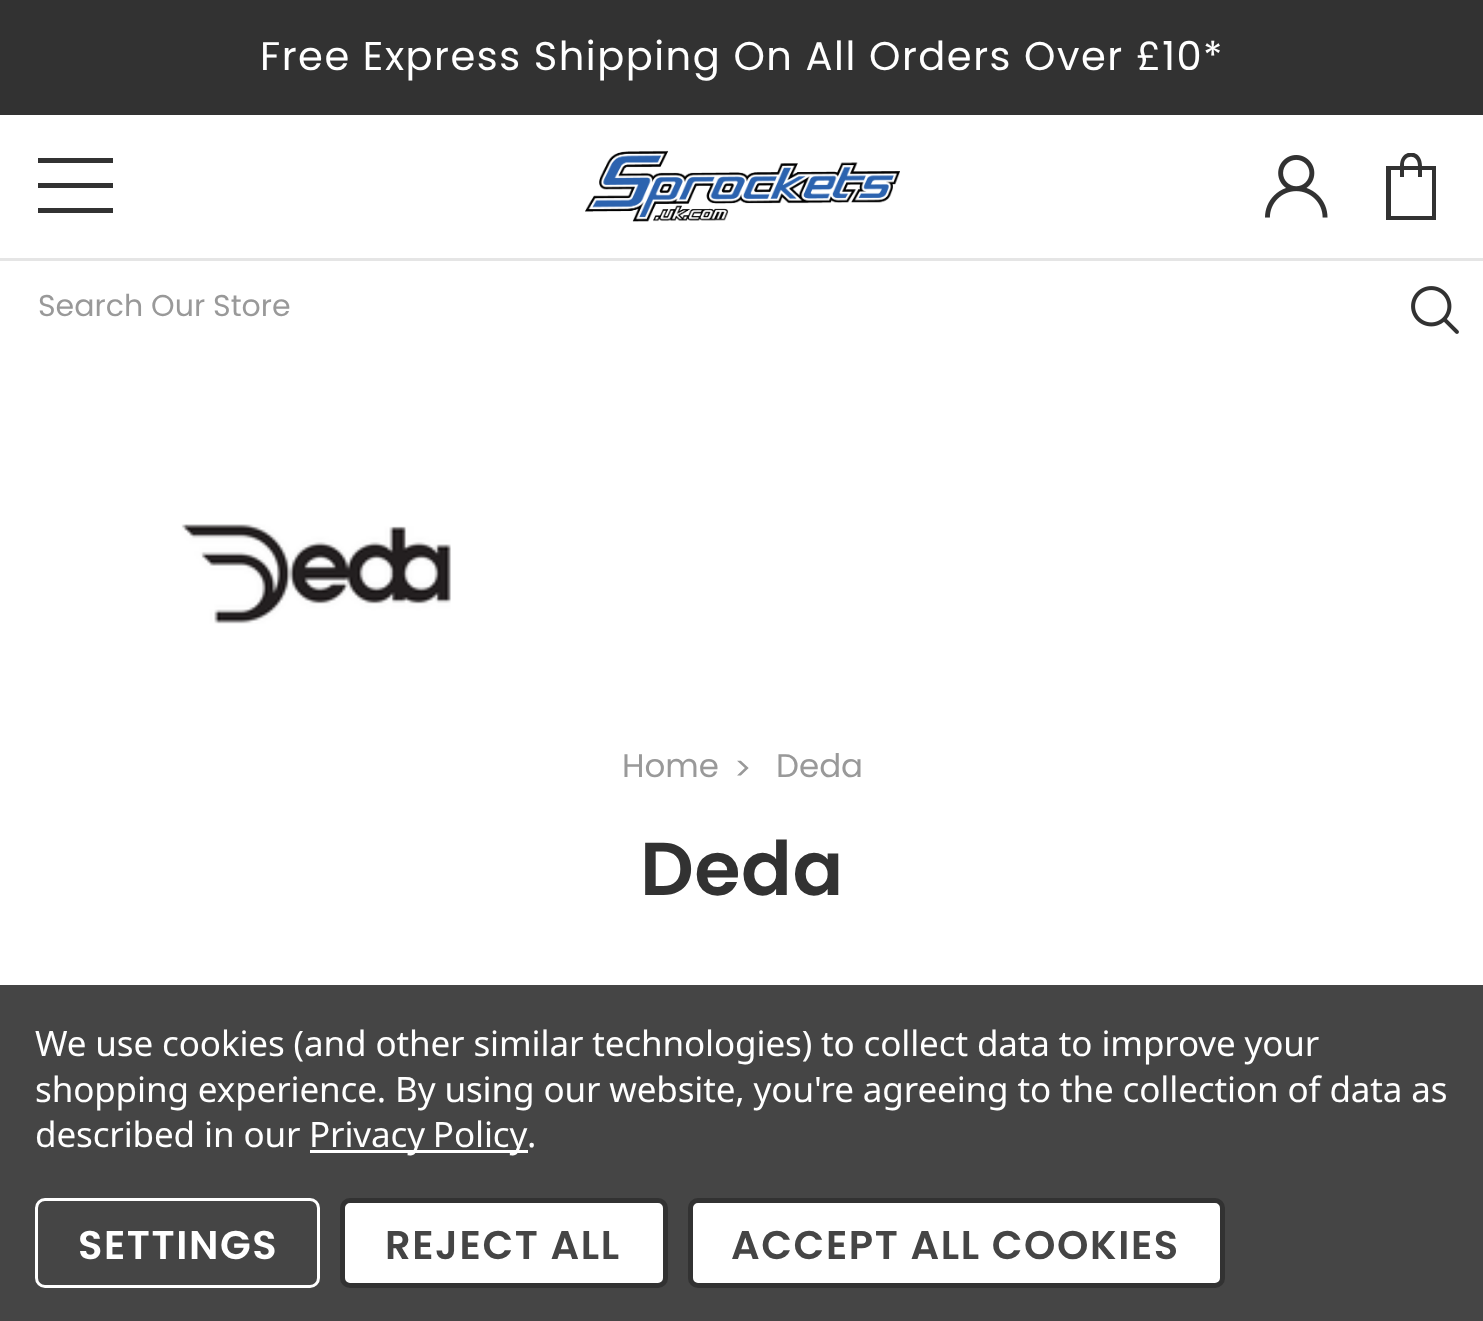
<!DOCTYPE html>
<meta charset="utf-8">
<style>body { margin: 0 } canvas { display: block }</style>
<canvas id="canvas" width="1483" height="1321"></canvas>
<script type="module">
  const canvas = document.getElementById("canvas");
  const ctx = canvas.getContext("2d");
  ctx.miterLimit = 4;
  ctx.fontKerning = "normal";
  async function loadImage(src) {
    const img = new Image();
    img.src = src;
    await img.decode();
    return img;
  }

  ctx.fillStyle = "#ffffff";
  ctx.fillRect(0, 0, 1483, 1321);
  ctx.fillStyle = "#e5e5e5";
  ctx.fillRect(0, 258, 1483, 3);
  ctx.fillStyle = "#323232";
  ctx.fillRect(0, 0, 1483, 115);
  ctx.letterSpacing = "1.5px";
  ctx.font = "40px Poppins";
  ctx.fillStyle = "#ffffff";
  ctx.fillText("Free Express Shipping On All Orders Over £10*", 260, 70);
  ctx.fillStyle = "#323232";
  ctx.fillRect(38, 183, 75, 5);
  ctx.fillRect(38, 158, 75, 5);
  ctx.fillRect(38, 208, 75, 5);
  ctx.drawImage(await loadImage("img1.png"), 585, 150, 315, 72);
  ctx.drawImage(await loadImage("img2.png"), 1265, 155, 63, 63);
  ctx.save();
  ctx.beginPath();
  ctx.rect(1378, 153, 67, 67);
  ctx.clip();
  ctx.beginPath();
  ctx.moveTo(1422, 166);
  ctx.bezierCurveTo(1422, 148, 1400, 148, 1400, 166);
  ctx.lineTo(1386, 166);
  ctx.lineTo(1386, 220);
  ctx.lineTo(1436, 220);
  ctx.lineTo(1436, 166);
  ctx.closePath();
  ctx.moveTo(1404, 164);
  ctx.bezierCurveTo(1404, 155, 1418, 153, 1418, 166);
  ctx.lineTo(1404, 166);
  ctx.closePath();
  ctx.moveTo(1432, 216);
  ctx.lineTo(1391, 216);
  ctx.lineTo(1391, 170);
  ctx.lineTo(1400, 170);
  ctx.lineTo(1400, 177);
  ctx.lineTo(1404, 177);
  ctx.lineTo(1404, 170);
  ctx.lineTo(1418, 170);
  ctx.lineTo(1418, 177);
  ctx.lineTo(1422, 177);
  ctx.lineTo(1422, 170);
  ctx.lineTo(1432, 170);
  ctx.closePath();
  ctx.fill();
  ctx.restore();
  ctx.letterSpacing = "0px";
  ctx.font = "30px Poppins";
  ctx.fillStyle = "#999999";
  ctx.fillText("Search Our Store", 38, 316);
  ctx.drawImage(await loadImage("img3.png"), 1411, 286, 48, 48);
  ctx.drawImage(await loadImage("img4.png"), 181, 524, 270, 100);
  ctx.font = "32.5px Poppins";
  ctx.fillText("Home", 622, 777);
  ctx.fillText(">", 734, 780);
  ctx.fillText("Deda", 776, 777);
  ctx.letterSpacing = "0.5px";
  ctx.font = "600 75px Poppins";
  ctx.fillStyle = "#323232";
  ctx.fillText("Deda", 640, 895);
  ctx.fillStyle = "#454545";
  ctx.fillRect(0, 985, 1483, 336);
  ctx.letterSpacing = "-0.12px";
  ctx.font = "35px Noto Sans";
  ctx.fillStyle = "#ffffff";
  ctx.fillText("We use cookies (and other similar technologies) to collect data to improve your", 35, 1056);
  ctx.fillText("shopping experience. By using our website, you're agreeing to the collection of data as", 35, 1102);
  ctx.fillText("described in our", 35, 1147);
  ctx.fillRect(310, 1150, 218, 3);
  ctx.wordSpacing = "-1px";
  ctx.fillText("Privacy Policy", 309, 1147);
  ctx.wordSpacing = "0px";
  ctx.fillText(".", 527, 1147);
  ctx.beginPath();
  ctx.roundRect(36.5, 1199.5, 282, 87, 8.5);
  ctx.strokeStyle = "#ffffff";
  ctx.lineWidth = 3;
  ctx.stroke();
  ctx.letterSpacing = "1.6px";
  ctx.font = "600 40px Poppins";
  ctx.fillText("SETTINGS", 78, 1259);
  ctx.beginPath();
  ctx.roundRect(342.5, 1200.5, 323, 85, 7.5);
  ctx.fill();
  ctx.strokeStyle = "#323232";
  ctx.lineWidth = 5;
  ctx.stroke();
  ctx.fillStyle = "#454545";
  ctx.fillText("REJECT ALL", 385, 1259);
  ctx.fillStyle = "#ffffff";
  ctx.beginPath();
  ctx.roundRect(690.5, 1200.5, 532, 85, 7.5);
  ctx.fill();
  ctx.stroke();
  ctx.fillStyle = "#454545";
  ctx.fillText("ACCEPT ALL COOKIES", 731, 1259);
</script>
